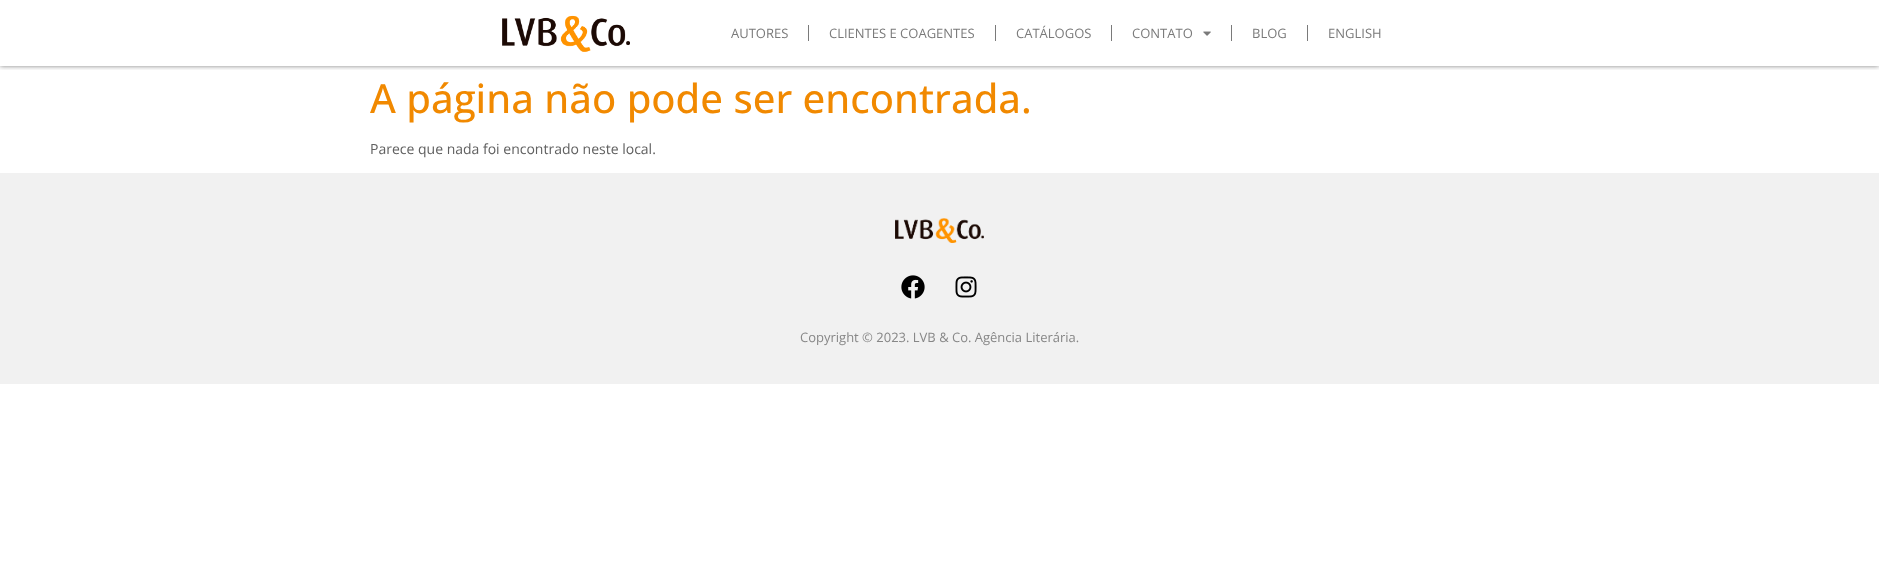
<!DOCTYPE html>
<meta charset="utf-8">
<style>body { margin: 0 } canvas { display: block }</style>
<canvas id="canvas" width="1879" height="588"></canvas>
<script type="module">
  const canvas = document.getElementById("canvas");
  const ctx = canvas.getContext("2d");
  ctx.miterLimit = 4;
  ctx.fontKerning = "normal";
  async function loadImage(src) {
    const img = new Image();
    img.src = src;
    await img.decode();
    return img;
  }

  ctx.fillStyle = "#ffffff";
  ctx.fillRect(0, 0, 1879, 588);
  ctx.save();
  ctx.beginPath();
  ctx.rect(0, 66, 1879, 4);
  ctx.clip();
  ctx.fillStyle = "rgba(0, 0, 0, 0.5)";
  ctx.filter = "blur(2.5px)";
  ctx.beginPath();
  ctx.rect(0, 0, 1879, 66);
  ctx.fill();
  ctx.filter = "none";
  ctx.restore();
  ctx.drawImage(await loadImage("img1.png"), 502, 15, 128, 37);
  ctx.font = "13px Open Sans";
  ctx.fillStyle = "#7a7a7a";
  ctx.fillText("AUTORES", 731, 38);
  ctx.fillRect(808, 25, 1, 16);
  ctx.fillText("CLIENTES E COAGENTES", 829, 38);
  ctx.fillRect(995, 25, 1, 16);
  ctx.fillText("CATÁLOGOS", 1016, 38);
  ctx.fillRect(1111, 25, 1, 16);
  ctx.fillText("CONTATO", 1132, 38);
  ctx.drawImage(await loadImage("img2.png"), 1203, 31, 8, 5);
  ctx.fillRect(1231, 25, 1, 16);
  ctx.fillText("BLOG", 1252, 38);
  ctx.fillRect(1307, 25, 1, 16);
  ctx.fillText("ENGLISH", 1328, 38);
  ctx.font = "500 40px Open Sans";
  ctx.fillStyle = "#f18900";
  ctx.fillText("A página não pode ser encontrada.", 370, 113);
  ctx.font = "14px Open Sans";
  ctx.fillStyle = "#606060";
  ctx.fillText("Parece que nada foi encontrado neste local.", 370, 154);
  ctx.fillStyle = "#f1f1f1";
  ctx.fillRect(0, 173, 1879, 211);
  ctx.drawImage(await loadImage("img3.png"), 895, 218, 89, 25);
  ctx.drawImage(await loadImage("img4.png"), 901, 275, 24, 24);
  ctx.drawImage(await loadImage("img5.png"), 955, 276, 22, 22);
  ctx.font = "13px Open Sans";
  ctx.fillStyle = "#878787";
  ctx.fillText("Copyright © 2023. LVB & Co. Agência Literária.", 800, 342);
</script>
